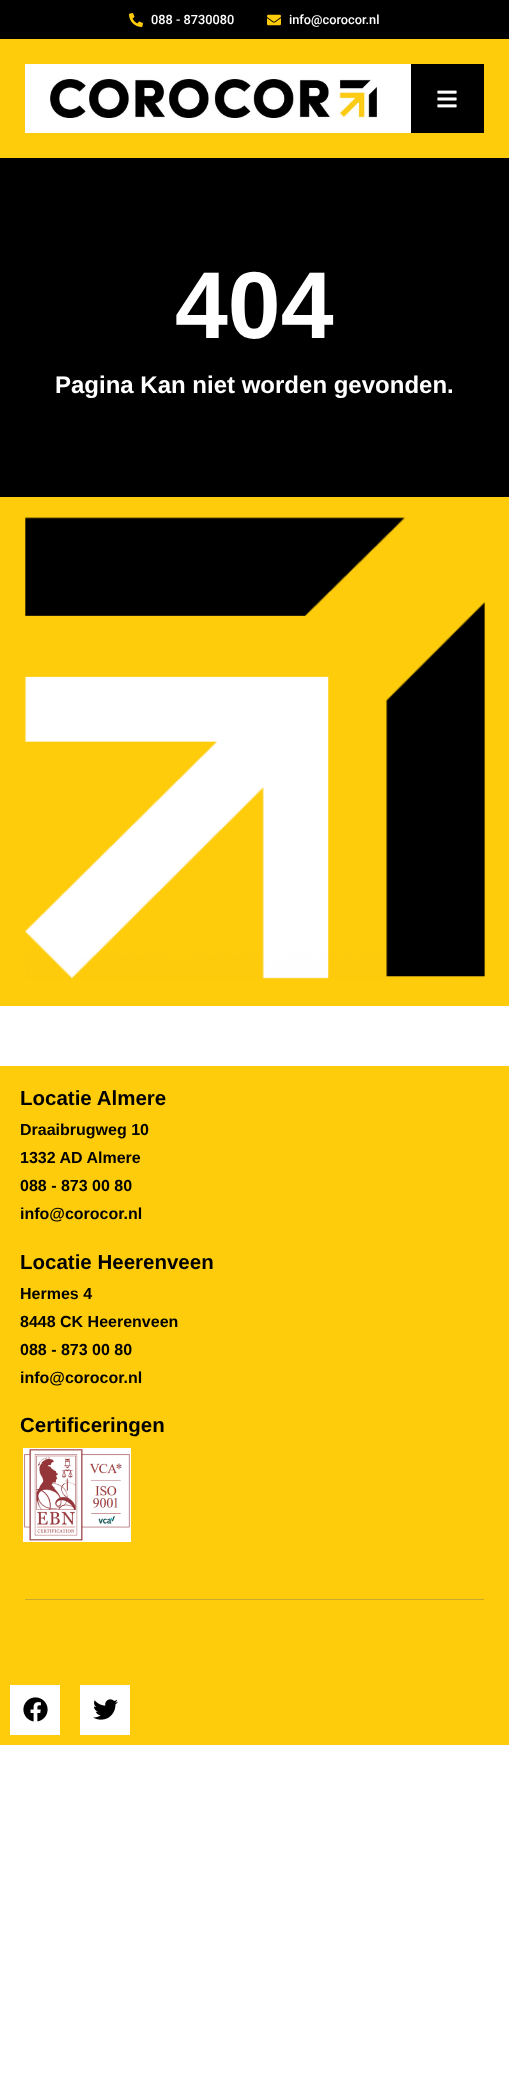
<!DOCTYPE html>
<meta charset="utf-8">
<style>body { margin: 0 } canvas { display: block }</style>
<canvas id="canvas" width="509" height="2097"></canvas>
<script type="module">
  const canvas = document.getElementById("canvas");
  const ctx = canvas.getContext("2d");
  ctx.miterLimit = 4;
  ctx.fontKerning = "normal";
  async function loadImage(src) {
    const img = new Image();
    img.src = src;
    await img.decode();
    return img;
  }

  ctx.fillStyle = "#ffffff";
  ctx.fillRect(0, 0, 509, 2097);
  ctx.fillStyle = "#000000";
  ctx.fillRect(0, 0, 509, 39);
  ctx.drawImage(await loadImage("img1.png"), 129, 13, 14, 14);
  ctx.font = "500 12.75px Roboto";
  ctx.fillStyle = "#ffffff";
  ctx.fillText("088 - 8730080", 151, 24);
  ctx.drawImage(await loadImage("img2.png"), 267, 14, 14, 12);
  ctx.fillText("info@corocor.nl", 289, 24);
  ctx.fillStyle = "#ffcc0c";
  ctx.fillRect(0, 39, 509, 119);
  ctx.fillStyle = "#ffffff";
  ctx.fillRect(25, 64, 386, 69);
  ctx.drawImage(await loadImage("img3.png"), 50, 79, 327, 39);
  ctx.fillStyle = "#000000";
  ctx.fillRect(411, 64, 73, 69);
  ctx.drawImage(await loadImage("img4.png"), 437, 90, 20, 18);
  ctx.fillRect(0, 158, 509, 339);
  ctx.font = "bold 95px Liberation Sans";
  ctx.fillStyle = "#ffffff";
  ctx.fillText("404", 175, 338);
  ctx.font = "bold 24px Liberation Sans";
  ctx.fillText("Pagina Kan niet worden gevonden.", 55, 393);
  ctx.fillStyle = "#ffcc0c";
  ctx.fillRect(0, 497, 509, 509);
  ctx.drawImage(await loadImage("img5.png"), 25, 517, 460, 462);
  ctx.fillRect(0, 1066, 509, 679);
  ctx.font = "bold 20.5px Liberation Sans";
  ctx.fillStyle = "#000000";
  ctx.fillText("Locatie Almere", 20, 1105);
  ctx.font = "bold 16px Liberation Sans";
  ctx.fillText("Draaibrugweg 10", 20, 1135);
  ctx.fillText("1332 AD Almere", 20, 1163);
  ctx.fillText("088 - 873 00 80", 20, 1191);
  ctx.fillText("info@corocor.nl", 20, 1219);
  ctx.font = "bold 20.5px Liberation Sans";
  ctx.fillText("Locatie Heerenveen", 20, 1269);
  ctx.font = "bold 16px Liberation Sans";
  ctx.fillText("Hermes 4", 20, 1299);
  ctx.fillText("8448 CK Heerenveen", 20, 1327);
  ctx.fillText("088 - 873 00 80", 20, 1355);
  ctx.fillText("info@corocor.nl", 20, 1383);
  ctx.font = "bold 20.5px Liberation Sans";
  ctx.fillText("Certificeringen", 20, 1432);
  ctx.drawImage(await loadImage("img6.png"), 23, 1448, 108, 94);
  ctx.fillStyle = "#c8a831";
  ctx.fillRect(25, 1599, 459, 1);
  ctx.fillStyle = "#ffffff";
  ctx.fillRect(10, 1685, 50, 50);
  ctx.drawImage(await loadImage("img7.png"), 23, 1697, 25, 25);
  ctx.fillRect(80, 1685, 50, 50);
  ctx.drawImage(await loadImage("img8.png"), 93, 1699, 25, 21);
</script>
